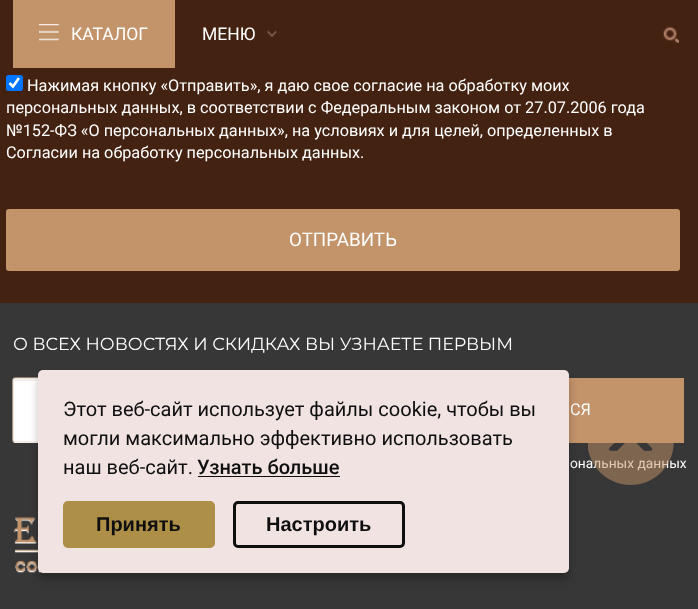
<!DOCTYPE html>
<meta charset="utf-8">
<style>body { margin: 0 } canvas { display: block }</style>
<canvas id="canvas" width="698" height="609"></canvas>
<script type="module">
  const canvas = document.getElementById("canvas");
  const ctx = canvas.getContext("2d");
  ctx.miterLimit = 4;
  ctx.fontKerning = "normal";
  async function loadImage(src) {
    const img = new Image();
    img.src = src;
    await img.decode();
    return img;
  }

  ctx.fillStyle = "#373737";
  ctx.fillRect(0, 0, 698, 609);
  ctx.fillStyle = "#442211";
  ctx.fillRect(0, 0, 698, 303);
  ctx.fillStyle = "#c3936a";
  ctx.fillRect(13, 0, 162, 68);
  ctx.drawImage(await loadImage("img1.png"), 39, 24, 20, 17);
  ctx.font = "17.5px Roboto";
  ctx.fillStyle = "#ffffff";
  ctx.fillText("КАТАЛОГ", 71, 40);
  ctx.fillText("МЕНЮ", 202, 40);
  ctx.drawImage(await loadImage("img2.png"), 267, 30, 10, 7);
  ctx.drawImage(await loadImage("img3.png"), 663, 26, 16, 17);
  ctx.fillStyle = "#0075ff";
  ctx.beginPath();
  ctx.roundRect(6, 75, 17, 16, 2.5);
  ctx.fill();
  ctx.beginPath();
  ctx.moveTo(9.5, 83);
  ctx.lineTo(13, 86.5);
  ctx.lineTo(19, 78);
  ctx.strokeStyle = "#ffffff";
  ctx.lineWidth = 2.6;
  ctx.stroke();
  ctx.font = "16.25px Roboto";
  ctx.fillStyle = "#ffffff";
  ctx.fillText("Нажимая кнопку «Отправить», я даю свое согласие на обработку моих", 27, 91);
  ctx.fillText("персональных данных, в соответствии с Федеральным законом от 27.07.2006 года", 6, 113);
  ctx.fillText("№152-ФЗ «О персональных данных», на условиях и для целей, определенных в", 6, 136);
  ctx.fillText("Согласии на обработку персональных данных.", 6, 158);
  ctx.fillStyle = "#c3936a";
  ctx.beginPath();
  ctx.roundRect(6.5, 209.5, 673, 61, 2);
  ctx.fill();
  ctx.strokeStyle = "#c3936a";
  ctx.lineWidth = 1;
  ctx.stroke();
  ctx.font = "18.75px Roboto";
  ctx.fillStyle = "#ffffff";
  ctx.fillText("ОТПРАВИТЬ", 289, 246);
  ctx.font = "17.5px Montserrat";
  ctx.fillText("О ВСЕХ НОВОСТЯХ И СКИДКАХ ВЫ УЗНАЕТЕ ПЕРВЫМ", 13, 350);
  ctx.beginPath();
  ctx.roundRect(13, 378, 370, 65, 2.5);
  ctx.fill();
  ctx.fillStyle = "#f2f0ee";
  ctx.beginPath();
  ctx.moveTo(15, 381);
  ctx.lineTo(380, 381);
  ctx.bezierCurveTo(381, 381, 381, 382, 381, 382);
  ctx.bezierCurveTo(381, 381, 381, 379, 380, 379);
  ctx.lineTo(14, 379);
  ctx.lineTo(14, 382);
  ctx.closePath();
  ctx.fill();
  ctx.beginPath();
  ctx.moveTo(13.5, 378.5);
  ctx.lineTo(15, 378);
  ctx.lineTo(380, 378);
  ctx.lineTo(381.5, 378.5);
  ctx.strokeStyle = "#e2c7b1";
  ctx.lineWidth = 1.2;
  ctx.stroke();
  ctx.beginPath();
  ctx.moveTo(381.5, 441.5);
  ctx.lineTo(380, 442);
  ctx.lineTo(15, 442);
  ctx.lineTo(13.5, 441.5);
  ctx.strokeStyle = "#ebdcd0";
  ctx.stroke();
  ctx.beginPath();
  ctx.moveTo(13.5, 441.5);
  ctx.lineTo(13, 440);
  ctx.lineTo(13, 380);
  ctx.lineTo(13.5, 378.5);
  ctx.strokeStyle = "#e7d2c2";
  ctx.stroke();
  ctx.fillStyle = "#c3936a";
  ctx.fillRect(569, 378, 115, 65);
  ctx.font = "16.25px Roboto";
  ctx.fillStyle = "#ffffff";
  ctx.fillText("СЯ", 570, 415);
  ctx.font = "13.75px Roboto";
  ctx.fillText("ональных данных", 570, 468);
  ctx.drawImage(await loadImage("img4.png"), 13, 517, 30, 56);
  ctx.fillStyle = "rgba(0, 0, 0, 0.25)";
  ctx.filter = "blur(4px)";
  ctx.beginPath();
  ctx.roundRect(38, 378, 531, 202, 5);
  ctx.fill();
  ctx.filter = "none";
  ctx.fillStyle = "#f2e3e3";
  ctx.beginPath();
  ctx.roundRect(38, 370, 531, 203, 5);
  ctx.fill();
  ctx.font = "20px Roboto";
  ctx.fillStyle = "#0f0f0f";
  ctx.fillText("Этот веб-сайт использует файлы cookie, чтобы вы", 63, 416);
  ctx.fillText("могли максимально эффективно использовать", 63, 445);
  ctx.fillText("наш веб-сайт.", 63, 474);
  ctx.font = "500 20px Roboto";
  ctx.fillText("Узнать больше", 197, 474);
  ctx.fillRect(198, 476, 142, 1);
  ctx.fillStyle = "#ad8f47";
  ctx.beginPath();
  ctx.roundRect(64.5, 502.5, 149, 44, 3.5);
  ctx.fill();
  ctx.strokeStyle = "#ad8f47";
  ctx.lineWidth = 3;
  ctx.stroke();
  ctx.font = "bold 20px Liberation Sans";
  ctx.fillStyle = "#0f0f0f";
  ctx.fillText("Принять", 96, 531);
  ctx.beginPath();
  ctx.roundRect(234.5, 502.5, 169, 44, 3.5);
  ctx.strokeStyle = "#0f0f0f";
  ctx.stroke();
  ctx.fillText("Настроить", 266, 531);
  ctx.drawImage(await loadImage("img5.png"), 588, 443, 86, 42);
</script>
